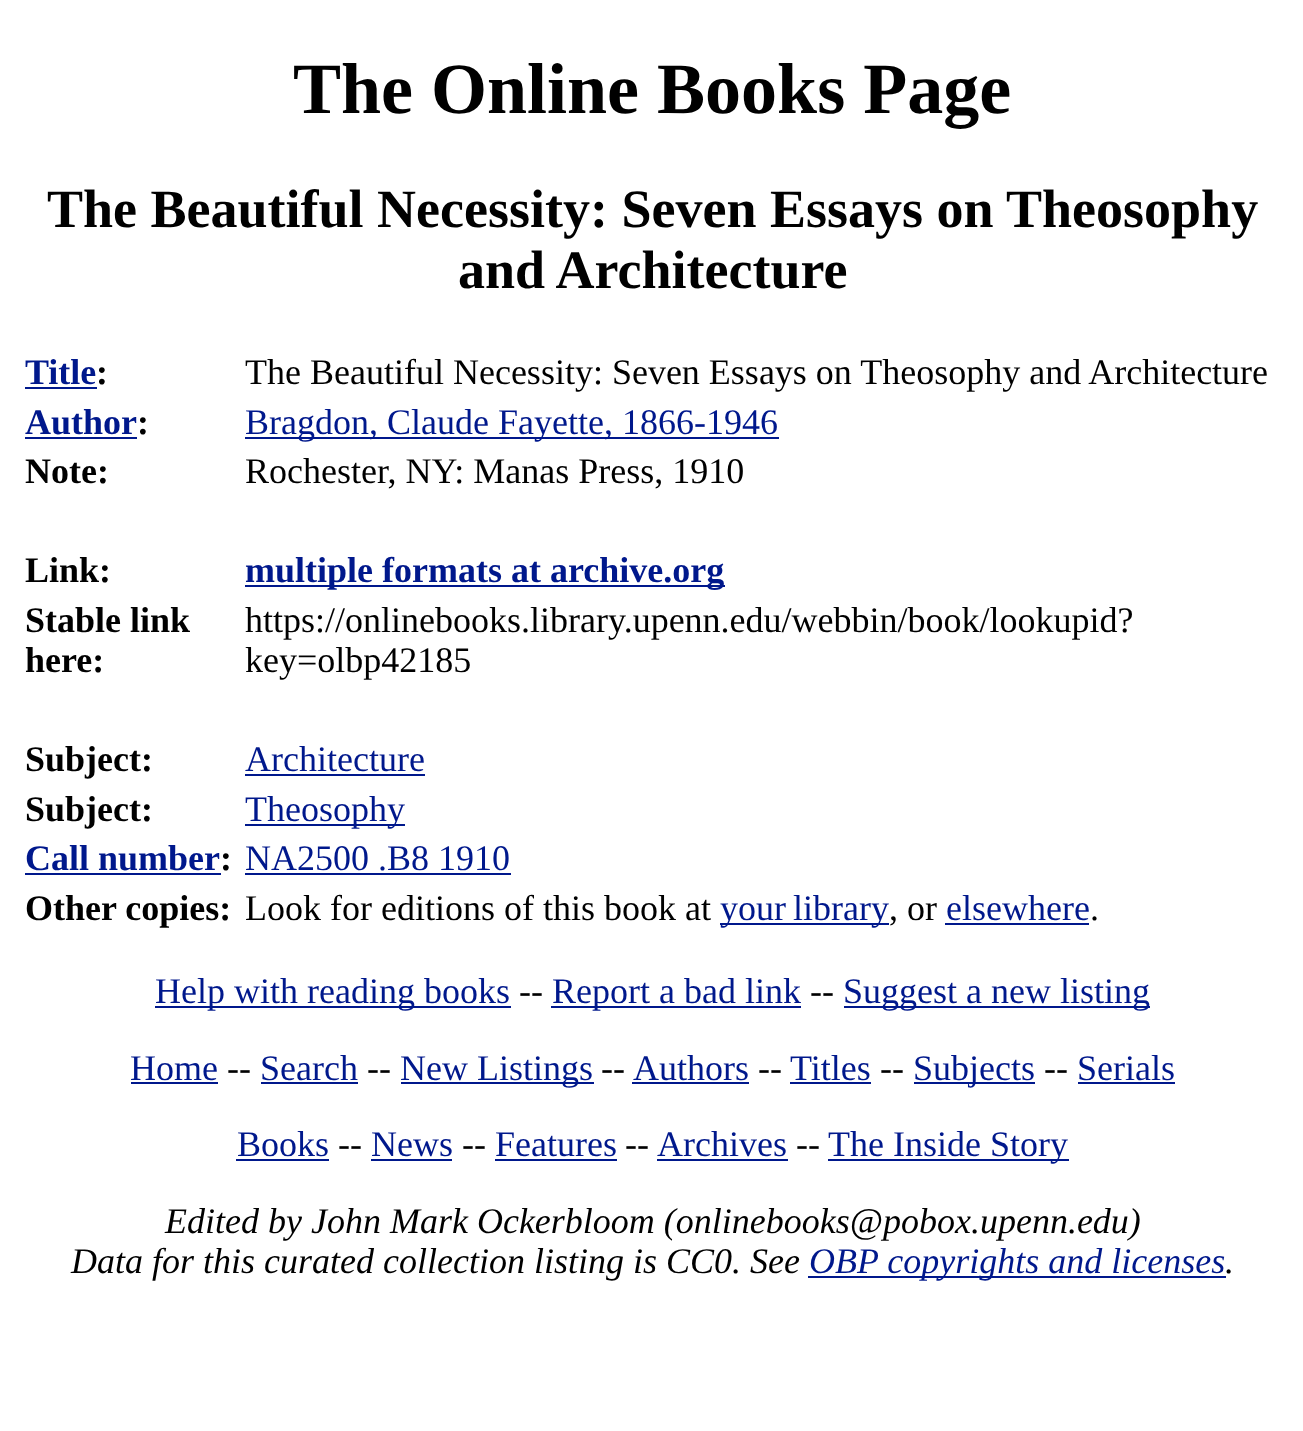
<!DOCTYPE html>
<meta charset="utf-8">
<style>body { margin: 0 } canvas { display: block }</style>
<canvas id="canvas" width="1303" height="1431"></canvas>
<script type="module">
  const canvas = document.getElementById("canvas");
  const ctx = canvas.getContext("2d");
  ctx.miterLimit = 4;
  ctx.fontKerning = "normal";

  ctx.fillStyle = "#ffffff";
  ctx.fillRect(0, 0, 1303, 1431);
  ctx.font = "bold 72px Liberation Serif";
  ctx.fillStyle = "#000000";
  ctx.fillText("The Online Books Page", 293, 113);
  ctx.font = "bold 54px Liberation Serif";
  ctx.fillText("The Beautiful Necessity: Seven Essays on Theosophy", 47, 227);
  ctx.fillText("and Architecture", 458, 288);
  ctx.font = "bold 36px Liberation Serif";
  ctx.fillStyle = "#00188c";
  ctx.fillText("Title", 25, 384);
  ctx.fillStyle = "#000000";
  ctx.fillText(":", 96, 384);
  ctx.fillStyle = "#00188c";
  ctx.fillRect(25, 387, 72, 2);
  ctx.font = "36px Liberation Serif";
  ctx.fillStyle = "#000000";
  ctx.fillText("The Beautiful Necessity: Seven Essays on Theosophy and Architecture", 245, 384);
  ctx.font = "bold 36px Liberation Serif";
  ctx.fillStyle = "#00188c";
  ctx.fillText("Author", 25, 434);
  ctx.fillStyle = "#000000";
  ctx.fillText(":", 137, 434);
  ctx.fillStyle = "#00188c";
  ctx.fillRect(25, 437, 112, 2);
  ctx.fillRect(245, 437, 534, 2);
  ctx.font = "36px Liberation Serif";
  ctx.fillText("Bragdon, Claude Fayette, 1866-1946", 245, 434);
  ctx.font = "bold 36px Liberation Serif";
  ctx.fillStyle = "#000000";
  ctx.fillText("Note:", 25, 483);
  ctx.font = "36px Liberation Serif";
  ctx.fillText("Rochester, NY: Manas Press, 1910", 245, 483);
  ctx.font = "bold 36px Liberation Serif";
  ctx.fillText("Link:", 25, 582);
  ctx.fillStyle = "#00188c";
  ctx.fillRect(245, 585, 480, 2);
  ctx.fillText("multiple formats at archive.org", 245, 582);
  ctx.fillStyle = "#000000";
  ctx.fillText("Stable link", 25, 632);
  ctx.fillText("here:", 25, 672);
  ctx.font = "36px Liberation Serif";
  ctx.fillText("https://onlinebooks.library.upenn.edu/webbin/book/lookupid?", 245, 632);
  ctx.fillText("key=olbp42185", 245, 672);
  ctx.font = "bold 36px Liberation Serif";
  ctx.fillText("Subject:", 25, 771);
  ctx.font = "36px Liberation Serif";
  ctx.fillStyle = "#00188c";
  ctx.fillText("Architecture", 245, 771);
  ctx.fillRect(245, 774, 180, 2);
  ctx.font = "bold 36px Liberation Serif";
  ctx.fillStyle = "#000000";
  ctx.fillText("Subject:", 25, 821);
  ctx.fillStyle = "#00188c";
  ctx.fillRect(245, 824, 160, 2);
  ctx.font = "36px Liberation Serif";
  ctx.fillText("Theosophy", 245, 821);
  ctx.font = "bold 36px Liberation Serif";
  ctx.fillText("Call number", 25, 870);
  ctx.fillStyle = "#000000";
  ctx.fillText(":", 220, 870);
  ctx.fillStyle = "#00188c";
  ctx.fillRect(25, 873, 196, 2);
  ctx.font = "36px Liberation Serif";
  ctx.fillText("NA2500 .B8 1910", 245, 870);
  ctx.fillRect(245, 873, 266, 2);
  ctx.font = "bold 36px Liberation Serif";
  ctx.fillStyle = "#000000";
  ctx.fillText("Other copies:", 25, 920);
  ctx.font = "36px Liberation Serif";
  ctx.fillText("Look for editions of this book at", 245, 920);
  ctx.fillStyle = "#00188c";
  ctx.fillRect(720, 923, 169, 2);
  ctx.wordSpacing = "-2px";
  ctx.fillText("your library", 720, 920);
  ctx.wordSpacing = "0px";
  ctx.fillStyle = "#000000";
  ctx.fillText(", or", 889, 920);
  ctx.fillStyle = "#00188c";
  ctx.fillText("elsewhere", 946, 920);
  ctx.fillRect(945, 923, 144, 2);
  ctx.fillStyle = "#000000";
  ctx.fillText(".", 1090, 920);
  ctx.fillStyle = "#00188c";
  ctx.fillRect(155, 1006, 356, 2);
  ctx.fillText("Help with reading books", 155, 1003);
  ctx.fillStyle = "#000000";
  ctx.fillText("--", 519, 1003);
  ctx.fillStyle = "#00188c";
  ctx.fillRect(551, 1006, 250, 2);
  ctx.fillText("Report a bad link", 552, 1003);
  ctx.fillStyle = "#000000";
  ctx.fillText("--", 810, 1003);
  ctx.fillStyle = "#00188c";
  ctx.fillRect(844, 1006, 306, 2);
  ctx.fillText("Suggest a new listing", 843, 1003);
  ctx.fillText("Home", 130, 1080);
  ctx.fillRect(131, 1082, 87, 2);
  ctx.fillStyle = "#000000";
  ctx.fillText("--", 227, 1080);
  ctx.fillStyle = "#00188c";
  ctx.fillText("Search", 260, 1080);
  ctx.fillRect(261, 1082, 97, 2);
  ctx.fillStyle = "#000000";
  ctx.fillText("--", 367, 1080);
  ctx.fillStyle = "#00188c";
  ctx.fillRect(401, 1082, 193, 2);
  ctx.fillText("New Listings", 400, 1080);
  ctx.fillStyle = "#000000";
  ctx.fillText("--", 601, 1080);
  ctx.fillStyle = "#00188c";
  ctx.fillText("Authors", 633, 1080);
  ctx.fillRect(632, 1082, 117, 2);
  ctx.fillStyle = "#000000";
  ctx.fillText("--", 758, 1080);
  ctx.fillStyle = "#00188c";
  ctx.fillText("Titles", 790, 1080);
  ctx.fillRect(790, 1082, 81, 2);
  ctx.fillStyle = "#000000";
  ctx.fillText("--", 880, 1080);
  ctx.fillStyle = "#00188c";
  ctx.fillRect(914, 1082, 121, 2);
  ctx.fillText("Subjects", 913, 1080);
  ctx.fillStyle = "#000000";
  ctx.fillText("--", 1044, 1080);
  ctx.fillStyle = "#00188c";
  ctx.fillText("Serials", 1077, 1080);
  ctx.fillRect(1078, 1082, 97, 2);
  ctx.fillText("Books", 237, 1156);
  ctx.fillRect(236, 1159, 93, 2);
  ctx.fillStyle = "#000000";
  ctx.fillText("--", 338, 1156);
  ctx.fillStyle = "#00188c";
  ctx.fillText("News", 371, 1156);
  ctx.fillRect(371, 1159, 81, 2);
  ctx.fillStyle = "#000000";
  ctx.fillText("--", 462, 1156);
  ctx.fillStyle = "#00188c";
  ctx.fillText("Features", 495, 1156);
  ctx.fillRect(495, 1159, 122, 2);
  ctx.fillStyle = "#000000";
  ctx.fillText("--", 625, 1156);
  ctx.fillStyle = "#00188c";
  ctx.fillText("Archives", 657, 1156);
  ctx.fillRect(657, 1159, 131, 2);
  ctx.fillStyle = "#000000";
  ctx.fillText("--", 796, 1156);
  ctx.fillStyle = "#00188c";
  ctx.fillRect(828, 1159, 241, 2);
  ctx.fillText("The Inside Story", 828, 1156);
  ctx.font = "italic 36px Liberation Serif";
  ctx.fillStyle = "#000000";
  ctx.fillText("Edited by John Mark Ockerbloom (onlinebooks@pobox.upenn.edu)", 165, 1233);
  ctx.fillText("Data for this curated collection listing is CC0. See", 71, 1273);
  ctx.fillStyle = "#00188c";
  ctx.fillRect(808, 1276, 418, 2);
  ctx.fillText("OBP copyrights and licenses", 809, 1273);
  ctx.fillStyle = "#000000";
  ctx.fillText(".", 1225, 1273);
</script>
